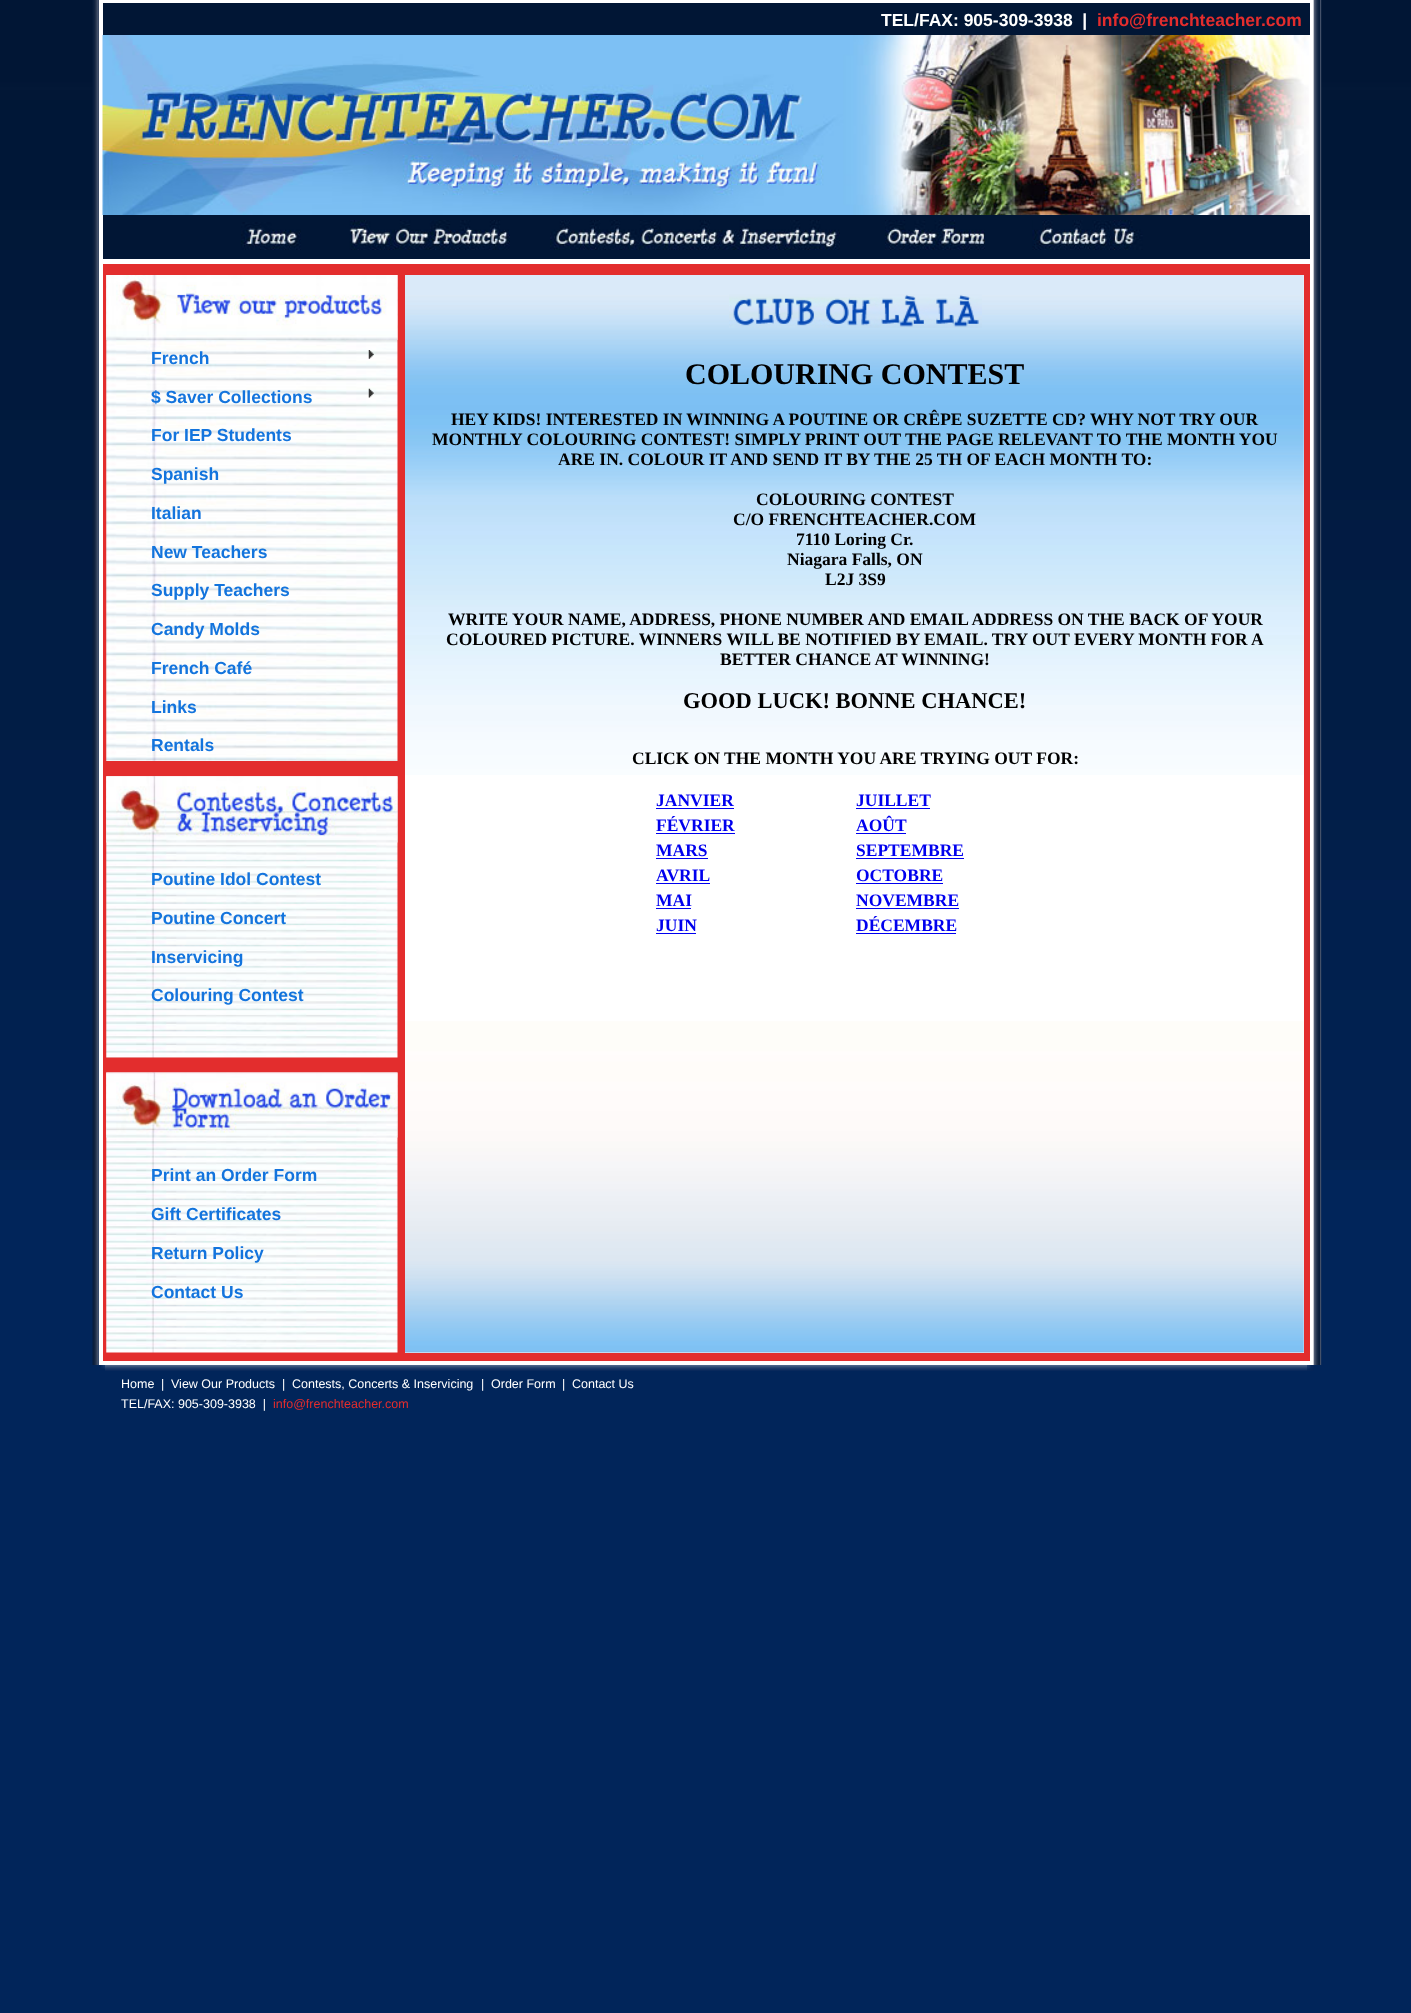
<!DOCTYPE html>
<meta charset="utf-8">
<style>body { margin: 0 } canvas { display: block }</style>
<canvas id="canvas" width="1411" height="2013"></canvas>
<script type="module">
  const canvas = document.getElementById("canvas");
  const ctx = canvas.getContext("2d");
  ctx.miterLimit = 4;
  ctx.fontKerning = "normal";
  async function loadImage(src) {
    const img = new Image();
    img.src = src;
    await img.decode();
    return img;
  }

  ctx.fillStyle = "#01255a";
  ctx.fillRect(0, 0, 1411, 2013);
  ctx.drawImage(await loadImage("img1.png"), 0, 0, 1411, 1170);
  ctx.drawImage(await loadImage("img2.png"), 92, 0, 7, 1365);
  ctx.fillStyle = "#ffffff";
  ctx.fillRect(99, 0, 1215, 1365);
  ctx.fillStyle = "#011635";
  ctx.fillRect(103, 3, 1207, 32);
  ctx.font = "bold 17.5px Liberation Sans";
  ctx.fillStyle = "#ffffff";
  ctx.fillText("TEL/FAX: 905-309-3938  |", 881, 26);
  ctx.fillStyle = "#e32d2d";
  ctx.fillText("info@frenchteacher.com", 1097, 26);
  ctx.drawImage(await loadImage("img3.png"), 102, 35, 1207, 180);
  ctx.fillStyle = "#011635";
  ctx.fillRect(103, 215, 1207, 44);
  ctx.drawImage(await loadImage("img4.png"), 241, 222, 60, 28);
  ctx.drawImage(await loadImage("img5.png"), 349, 220, 161, 30);
  ctx.drawImage(await loadImage("img6.png"), 550, 220, 290, 30);
  ctx.drawImage(await loadImage("img7.png"), 885, 220, 100, 30);
  ctx.drawImage(await loadImage("img8.png"), 1032, 220, 111, 30);
  ctx.fillStyle = "#e32d2d";
  ctx.fillRect(103, 264, 1207, 1097);
  ctx.drawImage(await loadImage("img9.png"), 106, 275, 292, 486);
  ctx.drawImage(await loadImage("img10.png"), 106, 275, 292, 65);
  ctx.drawImage(await loadImage("img11.png"), 368, 350, 6, 9);
  ctx.fillStyle = "#1374dd";
  ctx.fillText("French", 151, 364);
  ctx.drawImage(await loadImage("img12.png"), 368, 388, 6, 10);
  ctx.fillText("$ Saver Collections", 151, 403);
  ctx.fillText("For IEP Students", 151, 441);
  ctx.fillText("Spanish", 151, 480);
  ctx.fillText("Italian", 151, 519);
  ctx.fillText("New Teachers", 151, 558);
  ctx.fillText("Supply Teachers", 151, 596);
  ctx.fillText("Candy Molds", 151, 635);
  ctx.fillText("French Café", 151, 674);
  ctx.fillText("Links", 151, 713);
  ctx.fillText("Rentals", 151, 751);
  ctx.drawImage(await loadImage("img13.png"), 106, 776, 292, 282);
  ctx.drawImage(await loadImage("img14.png"), 106, 776, 292, 67);
  ctx.fillText("Poutine Idol Contest", 151, 885);
  ctx.fillText("Poutine Concert", 151, 924);
  ctx.fillText("Inservicing", 151, 963);
  ctx.fillText("Colouring Contest", 151, 1001);
  ctx.drawImage(await loadImage("img15.png"), 106, 1072, 292, 281);
  ctx.drawImage(await loadImage("img16.png"), 106, 1072, 292, 66);
  ctx.fillText("Print an Order Form", 151, 1181);
  ctx.fillText("Gift Certificates", 151, 1220);
  ctx.fillText("Return Policy", 151, 1259);
  ctx.fillText("Contact Us", 151, 1298);
  ctx.fillStyle = "#ffffff";
  ctx.fillRect(405, 275, 899, 1078);
  ctx.drawImage(await loadImage("img17.png"), 405, 1021, 899, 332);
  ctx.drawImage(await loadImage("img18.png"), 405, 275, 899, 500);
  ctx.drawImage(await loadImage("img19.png"), 729, 294, 253, 34);
  ctx.font = "bold 30px Liberation Serif";
  ctx.fillStyle = "#000000";
  ctx.fillText("COLOURING CONTEST", 685, 384);
  ctx.font = "bold 17.5px Liberation Serif";
  ctx.fillText("HEY KIDS! INTERESTED IN WINNING A POUTINE OR CRÊPE SUZETTE CD? WHY NOT TRY OUR", 451, 425);
  ctx.fillText("MONTHLY COLOURING CONTEST! SIMPLY PRINT OUT THE PAGE RELEVANT TO THE MONTH YOU", 432, 445);
  ctx.fillText("ARE IN. COLOUR IT AND SEND IT BY THE 25 TH OF EACH MONTH TO:", 558, 465);
  ctx.fillText("COLOURING CONTEST", 756, 505);
  ctx.fillText("C/O FRENCHTEACHER.COM", 733, 525);
  ctx.fillText("7110 Loring Cr.", 796, 545);
  ctx.fillText("Niagara Falls, ON", 787, 565);
  ctx.fillText("L2J 3S9", 825, 585);
  ctx.fillText("WRITE YOUR NAME, ADDRESS, PHONE NUMBER AND EMAIL ADDRESS ON THE BACK OF YOUR", 448, 625);
  ctx.fillText("COLOURED PICTURE. WINNERS WILL BE NOTIFIED BY EMAIL. TRY OUT EVERY MONTH FOR A", 446, 645);
  ctx.fillText("BETTER CHANCE AT WINNING!", 720, 665);
  ctx.font = "bold 22.5px Liberation Serif";
  ctx.fillText("GOOD LUCK! BONNE CHANCE!", 683, 708);
  ctx.font = "bold 17.5px Liberation Serif";
  ctx.fillText("CLICK ON THE MONTH YOU ARE TRYING OUT FOR:", 632, 764);
  ctx.fillStyle = "#0000ee";
  ctx.fillText("JANVIER", 656, 806);
  ctx.fillRect(656, 808, 78, 1);
  ctx.fillText("JUILLET", 856, 806);
  ctx.fillRect(856, 808, 74, 1);
  ctx.fillText("FÉVRIER", 656, 831);
  ctx.fillRect(656, 833, 79, 1);
  ctx.fillText("AOÛT", 856, 831);
  ctx.fillRect(856, 833, 50, 1);
  ctx.fillText("MARS", 656, 856);
  ctx.fillRect(656, 858, 52, 1);
  ctx.fillText("SEPTEMBRE", 856, 856);
  ctx.fillRect(856, 858, 108, 1);
  ctx.fillText("AVRIL", 656, 881);
  ctx.fillRect(656, 883, 54, 1);
  ctx.fillText("OCTOBRE", 856, 881);
  ctx.fillRect(856, 883, 87, 1);
  ctx.fillText("MAI", 656, 906);
  ctx.fillRect(656, 908, 35, 1);
  ctx.fillText("NOVEMBRE", 856, 906);
  ctx.fillRect(856, 908, 103, 1);
  ctx.fillText("JUIN", 656, 931);
  ctx.fillRect(656, 933, 40, 1);
  ctx.fillText("DÉCEMBRE", 856, 931);
  ctx.fillRect(856, 933, 100, 1);
  ctx.drawImage(await loadImage("img20.png"), 1313, 0, 9, 1365);
  ctx.drawImage(await loadImage("img21.png"), 101, 1365, 4, 4);
  ctx.drawImage(await loadImage("img23.png"), 105, 1365, 1203, 6);
  ctx.drawImage(await loadImage("img22.png"), 1307, 1365, 7, 6);
  ctx.font = "12.5px Liberation Sans";
  ctx.fillStyle = "#ffffff";
  ctx.fillText("Home", 121, 1388);
  ctx.fillText("|", 161, 1388);
  ctx.fillText("View Our Products", 171, 1388);
  ctx.fillText("|", 282, 1388);
  ctx.fillText("Contests, Concerts & Inservicing", 292, 1388);
  ctx.fillText("|", 481, 1388);
  ctx.fillText("Order Form", 491, 1388);
  ctx.fillText("|", 562, 1388);
  ctx.fillText("Contact Us", 572, 1388);
  ctx.fillText("TEL/FAX: 905-309-3938  |", 121, 1408);
  ctx.fillStyle = "#e32d2d";
  ctx.fillText("info@frenchteacher.com", 273, 1408);
</script>
